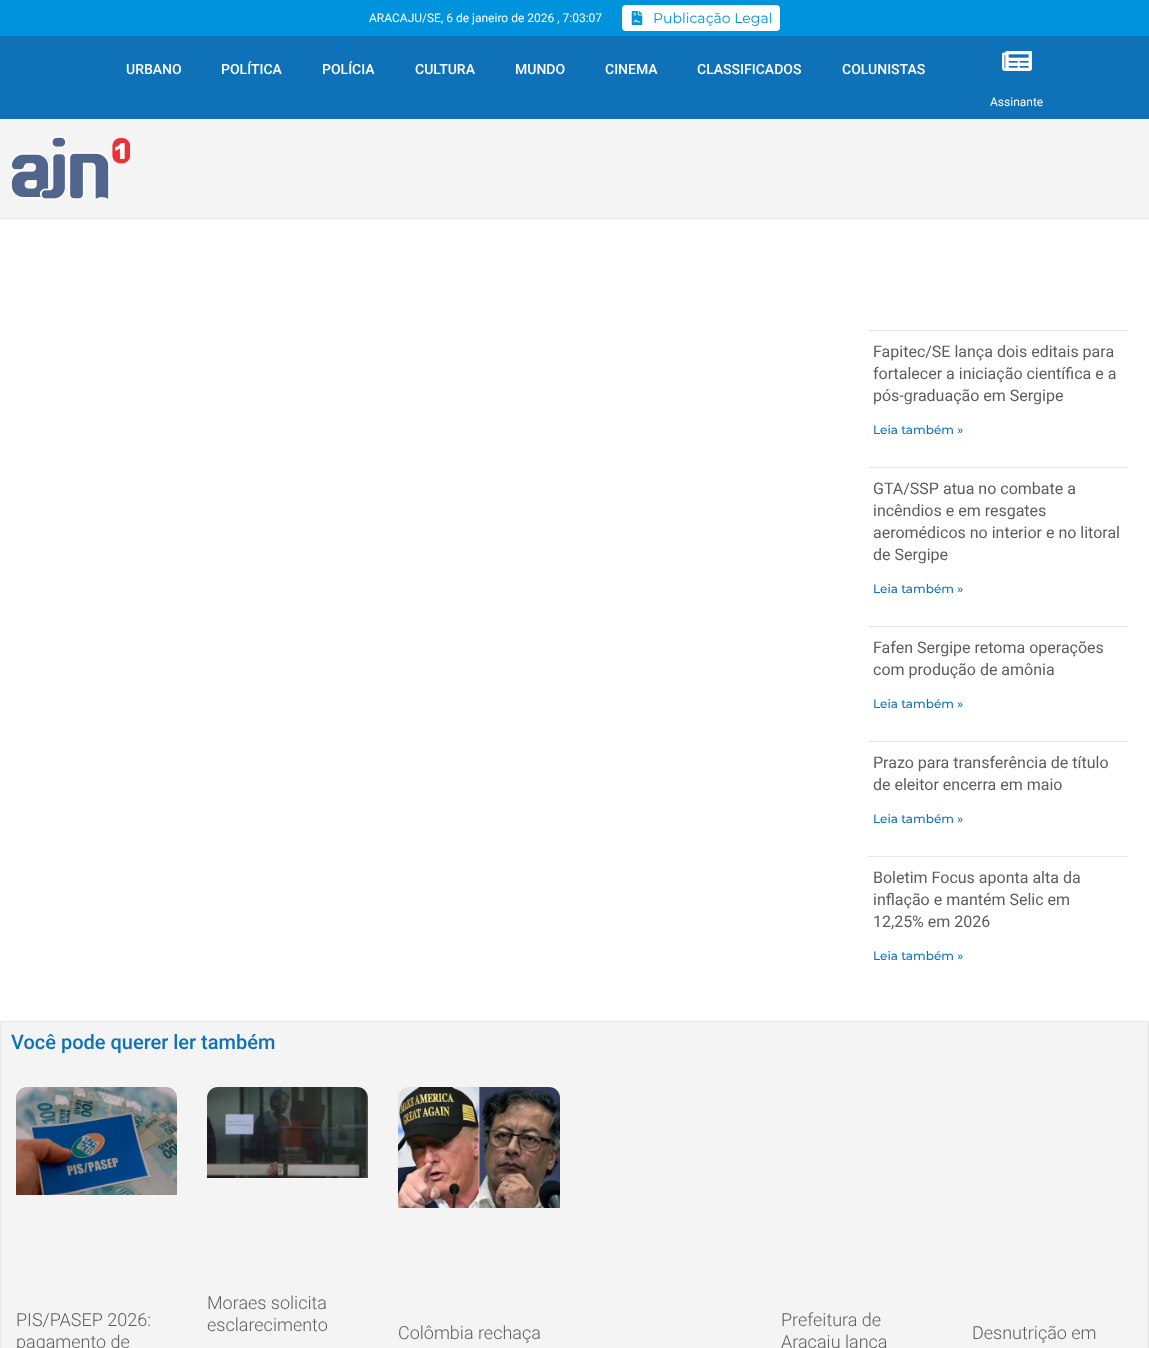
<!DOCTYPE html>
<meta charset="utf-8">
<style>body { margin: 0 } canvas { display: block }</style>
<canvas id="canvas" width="1149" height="1348"></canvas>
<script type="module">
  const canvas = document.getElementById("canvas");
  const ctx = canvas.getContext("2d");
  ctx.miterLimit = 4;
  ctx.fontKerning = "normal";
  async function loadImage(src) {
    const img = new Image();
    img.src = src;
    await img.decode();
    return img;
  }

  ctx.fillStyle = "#ffffff";
  ctx.fillRect(0, 0, 1149, 1348);
  ctx.fillStyle = "#0093dd";
  ctx.fillRect(0, 0, 1149, 36);
  ctx.font = "12px Roboto";
  ctx.fillStyle = "#ffffff";
  ctx.fillText("ARACAJU/SE, 6 de janeiro de 2026 , 7:03:07", 369, 22);
  ctx.beginPath();
  ctx.roundRect(622, 5, 158, 26, 4);
  ctx.fill();
  ctx.drawImage(await loadImage("img1.png"), 631, 11, 12, 14);
  ctx.font = "14px Montserrat";
  ctx.fillStyle = "#0093dd";
  ctx.fillText("Publicação Legal", 653, 23);
  ctx.fillStyle = "#0f71b8";
  ctx.fillRect(0, 36, 1149, 83);
  ctx.font = "500 14px Roboto";
  ctx.fillStyle = "#ffffff";
  ctx.fillText("URBANO", 126, 74);
  ctx.fillText("POLÍTICA", 221, 74);
  ctx.fillText("POLÍCIA", 322, 74);
  ctx.fillText("CULTURA", 415, 74);
  ctx.fillText("MUNDO", 515, 74);
  ctx.fillText("CINEMA", 605, 74);
  ctx.fillText("CLASSIFICADOS", 697, 74);
  ctx.fillText("COLUNISTAS", 842, 74);
  ctx.drawImage(await loadImage("img2.png"), 1002, 51, 30, 20);
  ctx.font = "12px Roboto";
  ctx.fillText("Assinante", 990, 106);
  ctx.fillStyle = "#f4f4f4";
  ctx.fillRect(0, 119, 1149, 99);
  ctx.fillStyle = "#e6e6e6";
  ctx.fillRect(0, 218, 1149, 1);
  ctx.drawImage(await loadImage("img3.png"), 10, 136, 120, 65);
  ctx.fillRect(868, 330, 260, 1);
  ctx.font = "16px Roboto";
  ctx.fillStyle = "#5d5d5d";
  ctx.fillText("Fapitec/SE lança dois editais para", 873, 357);
  ctx.fillText("fortalecer a iniciação científica e a", 873, 379);
  ctx.fillText("pós-graduação em Sergipe", 873, 401);
  ctx.font = "500 12px Montserrat";
  ctx.fillStyle = "#0f71b8";
  ctx.fillText("Leia também »", 873, 434);
  ctx.fillStyle = "#e6e6e6";
  ctx.fillRect(868, 467, 260, 1);
  ctx.font = "16px Roboto";
  ctx.fillStyle = "#5d5d5d";
  ctx.fillText("GTA/SSP atua no combate a", 873, 494);
  ctx.fillText("incêndios e em resgates", 873, 516);
  ctx.fillText("aeromédicos no interior e no litoral", 873, 538);
  ctx.fillText("de Sergipe", 873, 560);
  ctx.font = "500 12px Montserrat";
  ctx.fillStyle = "#0f71b8";
  ctx.fillText("Leia também »", 873, 593);
  ctx.fillStyle = "#e6e6e6";
  ctx.fillRect(868, 626, 260, 1);
  ctx.font = "16px Roboto";
  ctx.fillStyle = "#5d5d5d";
  ctx.fillText("Fafen Sergipe retoma operações", 873, 653);
  ctx.fillText("com produção de amônia", 873, 675);
  ctx.font = "500 12px Montserrat";
  ctx.fillStyle = "#0f71b8";
  ctx.fillText("Leia também »", 873, 708);
  ctx.fillStyle = "#e6e6e6";
  ctx.fillRect(868, 741, 260, 1);
  ctx.font = "16px Roboto";
  ctx.fillStyle = "#5d5d5d";
  ctx.fillText("Prazo para transferência de título", 873, 768);
  ctx.fillText("de eleitor encerra em maio", 873, 790);
  ctx.font = "500 12px Montserrat";
  ctx.fillStyle = "#0f71b8";
  ctx.fillText("Leia também »", 873, 823);
  ctx.fillStyle = "#e6e6e6";
  ctx.fillRect(868, 856, 260, 1);
  ctx.font = "16px Roboto";
  ctx.fillStyle = "#5d5d5d";
  ctx.fillText("Boletim Focus aponta alta da", 873, 883);
  ctx.fillText("inflação e mantém Selic em", 873, 905);
  ctx.fillText("12,25% em 2026", 873, 927);
  ctx.font = "500 12px Montserrat";
  ctx.fillStyle = "#0f71b8";
  ctx.fillText("Leia também »", 873, 960);
  ctx.fillStyle = "#f4f4f4";
  ctx.beginPath();
  ctx.rect(0.5, 1021.5, 1148, 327);
  ctx.fill();
  ctx.strokeStyle = "#e6e6e6";
  ctx.stroke();
  ctx.font = "500 20px Roboto";
  ctx.fillStyle = "#0f71b8";
  ctx.fillText("Você pode querer ler também", 11, 1049);
  ctx.drawImage(await loadImage("img4.png"), 16, 1087, 161, 108);
  ctx.font = "300 18px Roboto";
  ctx.fillStyle = "#5d5d5d";
  ctx.fillText("PIS/PASEP 2026:", 16, 1326);
  ctx.fillText("pagamento de", 16, 1348);
  ctx.drawImage(await loadImage("img5.png"), 207, 1087, 161, 91);
  ctx.fillText("Moraes solicita", 207, 1309);
  ctx.fillText("esclarecimento", 207, 1331);
  ctx.drawImage(await loadImage("img6.png"), 398, 1087, 162, 121);
  ctx.fillText("Colômbia rechaça", 398, 1339);
  ctx.fillText("Prefeitura de", 781, 1326);
  ctx.fillText("Aracaju lança", 781, 1348);
  ctx.fillText("Desnutrição em", 972, 1339);
</script>
